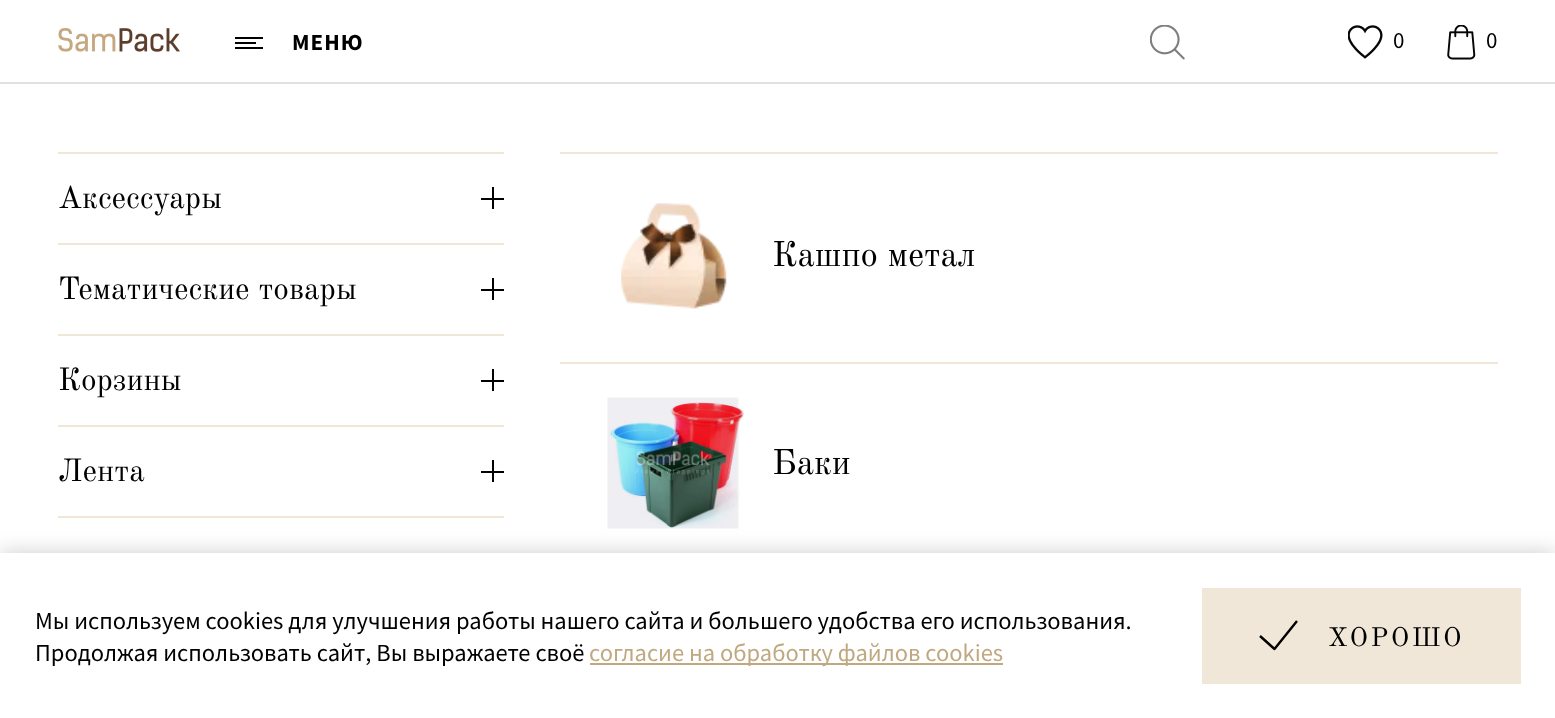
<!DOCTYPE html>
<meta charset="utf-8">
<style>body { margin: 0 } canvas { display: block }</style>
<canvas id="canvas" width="1555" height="718"></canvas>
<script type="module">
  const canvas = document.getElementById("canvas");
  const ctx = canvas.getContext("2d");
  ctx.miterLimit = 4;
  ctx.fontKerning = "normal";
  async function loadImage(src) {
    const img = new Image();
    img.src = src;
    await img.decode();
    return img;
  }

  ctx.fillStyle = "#ffffff";
  ctx.fillRect(0, 0, 1555, 718);
  ctx.fillStyle = "#e0e0e0";
  ctx.fillRect(0, 82, 1555, 2);
  ctx.drawImage(await loadImage("img1.png"), 58, 28, 122, 24);
  ctx.fillStyle = "#000000";
  ctx.fillRect(235, 37, 28, 2);
  ctx.fillRect(235, 42, 21, 2);
  ctx.fillRect(235, 47, 28, 2);
  ctx.letterSpacing = "1px";
  ctx.font = "bold 23px Source Sans Pro";
  ctx.fillText("МЕНЮ", 292, 50);
  ctx.drawImage(await loadImage("img2.png"), 1150, 25, 35, 35);
  ctx.drawImage(await loadImage("img3.png"), 1348, 25, 35, 34);
  ctx.font = "23px Source Sans Pro";
  ctx.fillText("0", 1393, 48);
  ctx.drawImage(await loadImage("img4.png"), 1447, 25, 29, 35);
  ctx.fillText("0", 1486, 48);
  ctx.fillStyle = "#f0e7d8";
  ctx.fillRect(58, 152, 446, 2);
  ctx.letterSpacing = "0px";
  ctx.font = "31.5px Old Standard TT";
  ctx.fillStyle = "#000000";
  ctx.fillText("Аксессуары", 58, 208);
  ctx.fillRect(481, 198, 23, 2);
  ctx.fillRect(492, 187, 2, 22);
  ctx.fillStyle = "#f0e7d8";
  ctx.fillRect(58, 243, 446, 2);
  ctx.fillStyle = "#000000";
  ctx.fillText("Тематические товары", 58, 299);
  ctx.fillRect(481, 289, 23, 2);
  ctx.fillRect(492, 278, 2, 22);
  ctx.fillStyle = "#f0e7d8";
  ctx.fillRect(58, 334, 446, 2);
  ctx.fillStyle = "#000000";
  ctx.fillText("Корзины", 58, 390);
  ctx.fillRect(481, 380, 23, 2);
  ctx.fillRect(492, 369, 2, 22);
  ctx.fillStyle = "#f0e7d8";
  ctx.fillRect(58, 425, 446, 2);
  ctx.fillStyle = "#000000";
  ctx.fillText("Лента", 58, 481);
  ctx.fillRect(481, 471, 23, 2);
  ctx.fillRect(492, 460, 2, 22);
  ctx.fillStyle = "#f0e7d8";
  ctx.fillRect(58, 516, 446, 2);
  ctx.fillRect(560, 152, 938, 2);
  ctx.fillRect(560, 362, 938, 2);
  ctx.drawImage(await loadImage("img5.png"), 621, 203, 106, 106);
  ctx.font = "35px Old Standard TT";
  ctx.fillStyle = "#000000";
  ctx.fillText("Кашпо метал", 772, 266);
  ctx.drawImage(await loadImage("img6.png"), 607, 397, 137, 132);
  ctx.fillText("Баки", 772, 474);
  ctx.fillStyle = "rgba(0, 0, 0, 0.2)";
  ctx.filter = "blur(10.5px)";
  ctx.beginPath();
  ctx.rect(0, 553, 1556, 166);
  ctx.fill();
  ctx.filter = "none";
  ctx.fillStyle = "#ffffff";
  ctx.fillRect(0, 553, 1555, 165);
  ctx.font = "24.5px Source Sans Pro";
  ctx.fillStyle = "#000000";
  ctx.fillText("Мы используем cookies для улучшения работы нашего сайта и большего удобства его использования.", 35, 629);
  ctx.fillText("Продолжая использовать сайт, Вы выражаете своё", 35, 661);
  ctx.fillStyle = "#c0a981";
  ctx.fillRect(590, 663, 413, 2);
  ctx.fillText("согласие на обработку файлов cookies", 589, 661);
  ctx.fillStyle = "#f0e7d8";
  ctx.fillRect(1202, 588, 319, 96);
  ctx.beginPath();
  ctx.moveTo(1260, 636);
  ctx.lineTo(1274.5, 649);
  ctx.lineTo(1297, 621);
  ctx.strokeStyle = "#000000";
  ctx.lineWidth = 2.4;
  ctx.lineJoin = "round";
  ctx.stroke();
  ctx.letterSpacing = "2.5px";
  ctx.font = "26.25px Old Standard TT";
  ctx.fillStyle = "#000000";
  ctx.fillText("ХОРОШО", 1328, 646);
</script>
